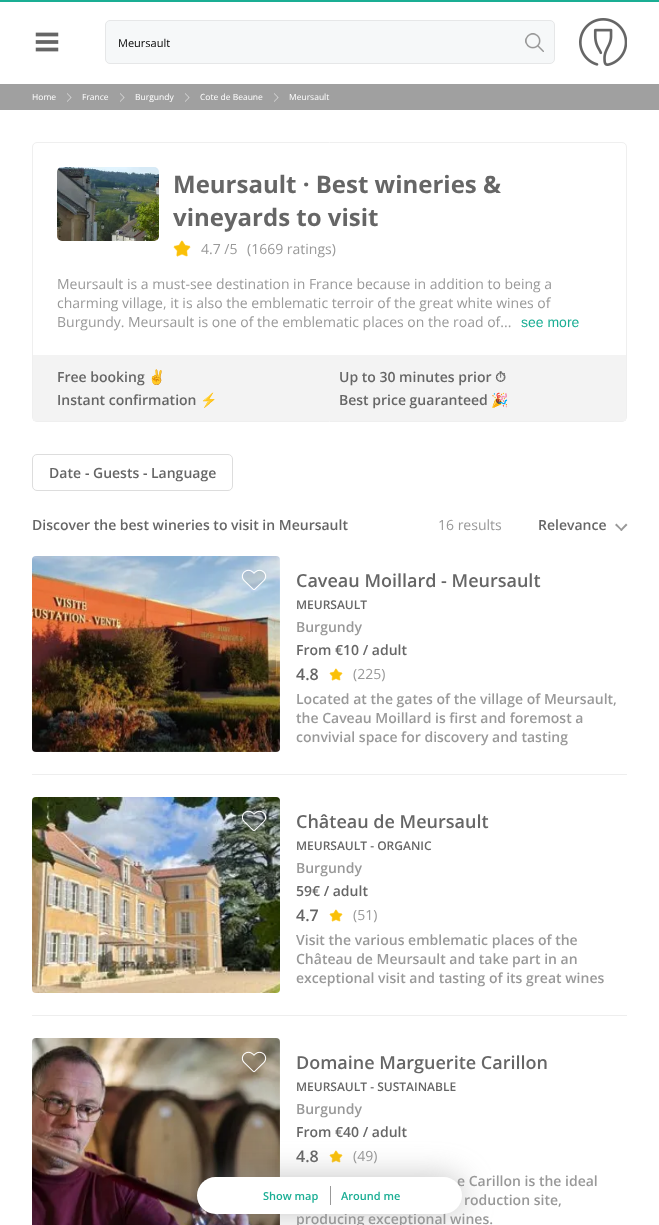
<!DOCTYPE html>
<meta charset="utf-8">
<style>body { margin: 0 } canvas { display: block }</style>
<canvas id="canvas" width="659" height="1225"></canvas>
<script type="module">
  const canvas = document.getElementById("canvas");
  const ctx = canvas.getContext("2d");
  ctx.miterLimit = 4;
  ctx.fontKerning = "normal";
  async function loadImage(src) {
    const img = new Image();
    img.src = src;
    await img.decode();
    return img;
  }

  ctx.fillStyle = "#ffffff";
  ctx.fillRect(0, 0, 659, 1225);
  ctx.fillStyle = "#1aae94";
  ctx.fillRect(0, 0, 659, 2);
  ctx.drawImage(await loadImage("img1.png"), 35, 32, 24, 20);
  ctx.fillStyle = "#f6f8f9";
  ctx.beginPath();
  ctx.roundRect(105.5, 20.5, 449, 43, 4.5);
  ctx.fill();
  ctx.strokeStyle = "#e6e7e8";
  ctx.stroke();
  ctx.font = "11px Open Sans";
  ctx.fillStyle = "#000000";
  ctx.fillText("Meursault", 118, 47);
  ctx.drawImage(await loadImage("img2.png"), 525, 33, 19, 19);
  ctx.drawImage(await loadImage("img3.png"), 579, 18, 48, 48);
  ctx.fillStyle = "#a0a0a0";
  ctx.fillRect(0, 84, 659, 26);
  ctx.font = "8.5px Open Sans";
  ctx.fillStyle = "#ffffff";
  ctx.fillText("Home", 32, 100);
  ctx.drawImage(await loadImage("img4.png"), 67, 93, 5, 9);
  ctx.fillText("France", 82, 100);
  ctx.drawImage(await loadImage("img4.png"), 120, 93, 5, 9);
  ctx.fillText("Burgundy", 135, 100);
  ctx.drawImage(await loadImage("img4.png"), 185, 93, 5, 9);
  ctx.fillText("Cote de Beaune", 200, 100);
  ctx.drawImage(await loadImage("img4.png"), 274, 93, 5, 9);
  ctx.fillText("Meursault", 289, 100);
  ctx.beginPath();
  ctx.roundRect(32.5, 142.5, 594, 279, 4.5);
  ctx.strokeStyle = "#efefef";
  ctx.stroke();
  ctx.drawImage(await loadImage("img5.png"), 57, 167, 102, 74);
  ctx.font = "bold 24px Open Sans";
  ctx.fillStyle = "#666666";
  ctx.fillText("Meursault · Best wineries &", 173, 193);
  ctx.fillText("vineyards to visit", 173, 226);
  ctx.drawImage(await loadImage("img6.png"), 173, 240, 18, 17);
  ctx.font = "14px Open Sans";
  ctx.fillStyle = "#999999";
  ctx.fillText("4.7 /5", 201, 254);
  ctx.fillText("(1669 ratings)", 247, 254);
  ctx.fillText("Meursault is a must-see destination in France because in addition to being a", 57, 289);
  ctx.fillText("charming village, it is also the emblematic terroir of the great white wines of", 57, 308);
  ctx.fillText("Burgundy. Meursault is one of the emblematic places on the road of...", 57, 327);
  ctx.font = "14px Liberation Sans";
  ctx.fillStyle = "#1aae94";
  ctx.fillText("see more", 521, 327);
  ctx.fillStyle = "#f3f3f3";
  ctx.fillRect(33, 355, 593, 66);
  ctx.font = "600 14px Open Sans";
  ctx.fillStyle = "#666666";
  ctx.fillText("Free booking", 57, 382);
  ctx.font = "bold 14px Noto Color Emoji";
  ctx.fillText("✌️", 148, 382);
  ctx.font = "600 14px Open Sans";
  ctx.fillText("Up to 30 minutes prior", 339, 382);
  ctx.font = "bold 14px FreeSerif";
  ctx.fillText("⏱", 495, 382);
  ctx.font = "600 14px Open Sans";
  ctx.fillText("Instant confirmation", 57, 405);
  ctx.font = "bold 14px Noto Color Emoji";
  ctx.fillText("⚡️", 200, 405);
  ctx.font = "600 14px Open Sans";
  ctx.fillText("Best price guaranteed", 339, 405);
  ctx.font = "bold 14px Noto Color Emoji";
  ctx.fillText("🎉", 491, 405);
  ctx.beginPath();
  ctx.roundRect(32.5, 454.5, 200, 36, 4.5);
  ctx.strokeStyle = "#dddddd";
  ctx.stroke();
  ctx.font = "600 14px Open Sans";
  ctx.fillText("Date", 49, 478);
  ctx.font = "600 14px Noto Sans";
  ctx.fillText("-", 85, 478);
  ctx.font = "600 14px Open Sans";
  ctx.fillText("Guests", 93, 478);
  ctx.font = "600 14px Noto Sans";
  ctx.fillText("-", 143, 478);
  ctx.font = "600 14px Open Sans";
  ctx.fillText("Language", 151, 478);
  ctx.fillText("Discover the best wineries to visit in Meursault", 32, 530);
  ctx.font = "14px Open Sans";
  ctx.fillStyle = "#999999";
  ctx.fillText("16 results", 438, 530);
  ctx.font = "600 14px Open Sans";
  ctx.fillStyle = "#666666";
  ctx.fillText("Relevance", 538, 530);
  ctx.fillStyle = "#999999";
  ctx.beginPath();
  ctx.moveTo(626, 523.5);
  ctx.lineTo(627.5, 525);
  ctx.lineTo(621.5, 531);
  ctx.lineTo(620, 530);
  ctx.closePath();
  ctx.fill();
  ctx.beginPath();
  ctx.moveTo(616.5, 523.5);
  ctx.lineTo(622.5, 530);
  ctx.lineTo(621.5, 531);
  ctx.lineTo(615, 525);
  ctx.closePath();
  ctx.fill();
  ctx.fillStyle = "#eeeeee";
  ctx.fillRect(32, 774, 595, 1);
  ctx.drawImage(await loadImage("img7.png"), 32, 556, 248, 196);
  ctx.drawImage(await loadImage("img8.png"), 241, 569, 26, 21);
  ctx.font = "600 18px Open Sans";
  ctx.fillStyle = "#666666";
  ctx.fillText("Caveau Moillard - Meursault", 296, 587);
  ctx.font = "600 12px Open Sans";
  ctx.fillText("MEURSAULT", 296, 609);
  ctx.font = "600 14px Open Sans";
  ctx.fillStyle = "#999999";
  ctx.fillText("Burgundy", 296, 632);
  ctx.fillStyle = "#666666";
  ctx.fillText("From €10 / adult", 296, 655);
  ctx.font = "600 16px Open Sans";
  ctx.fillText("4.8", 296, 680);
  ctx.drawImage(await loadImage("img9.png"), 329, 668, 14, 13);
  ctx.font = "14px Open Sans";
  ctx.fillStyle = "#999999";
  ctx.fillText("(225)", 353, 679);
  ctx.font = "600 14px Open Sans";
  ctx.fillText("Located at the gates of the village of Meursault,", 296, 704);
  ctx.fillText("the Caveau Moillard is first and foremost a", 296, 723);
  ctx.fillText("convivial space for discovery and tasting", 296, 742);
  ctx.fillStyle = "#eeeeee";
  ctx.fillRect(32, 1015, 595, 1);
  ctx.drawImage(await loadImage("img10.png"), 32, 797, 248, 196);
  ctx.drawImage(await loadImage("img11.png"), 241, 810, 26, 22);
  ctx.font = "600 18px Open Sans";
  ctx.fillStyle = "#666666";
  ctx.fillText("Château de Meursault", 296, 828);
  ctx.font = "600 12px Open Sans";
  ctx.fillText("MEURSAULT - ORGANIC", 296, 850);
  ctx.font = "600 14px Open Sans";
  ctx.fillStyle = "#999999";
  ctx.fillText("Burgundy", 296, 873);
  ctx.fillStyle = "#666666";
  ctx.fillText("59€ / adult", 296, 896);
  ctx.font = "600 16px Open Sans";
  ctx.fillText("4.7", 296, 921);
  ctx.drawImage(await loadImage("img9.png"), 329, 909, 14, 13);
  ctx.font = "14px Open Sans";
  ctx.fillStyle = "#999999";
  ctx.fillText("(51)", 353, 920);
  ctx.font = "600 14px Open Sans";
  ctx.fillText("Visit the various emblematic places of the", 296, 945);
  ctx.fillText("Château de Meursault and take part in an", 296, 964);
  ctx.fillText("exceptional visit and tasting of its great wines", 296, 983);
  ctx.drawImage(await loadImage("img12.png"), 32, 1038, 248, 187);
  ctx.drawImage(await loadImage("img13.png"), 241, 1051, 26, 22);
  ctx.font = "600 18px Open Sans";
  ctx.fillStyle = "#666666";
  ctx.fillText("Domaine Marguerite Carillon", 296, 1069);
  ctx.font = "600 12px Open Sans";
  ctx.fillText("MEURSAULT - SUSTAINABLE", 296, 1091);
  ctx.font = "600 14px Open Sans";
  ctx.fillStyle = "#999999";
  ctx.fillText("Burgundy", 296, 1114);
  ctx.fillStyle = "#666666";
  ctx.fillText("From €40 / adult", 296, 1137);
  ctx.font = "600 16px Open Sans";
  ctx.fillText("4.8", 296, 1162);
  ctx.drawImage(await loadImage("img9.png"), 329, 1150, 14, 13);
  ctx.font = "14px Open Sans";
  ctx.fillStyle = "#999999";
  ctx.fillText("(49)", 353, 1161);
  ctx.font = "600 14px Open Sans";
  ctx.fillText("e Carillon is the ideal", 457, 1186);
  ctx.fillText("roduction site,", 464, 1205);
  ctx.fillText("producing exceptional wines.", 296, 1224);
  ctx.fillStyle = "rgba(150, 150, 150, 0.5)";
  ctx.filter = "blur(15px)";
  ctx.beginPath();
  ctx.roundRect(195, 1175, 269, 41, 20.5);
  ctx.fill();
  ctx.filter = "none";
  ctx.fillStyle = "#ffffff";
  ctx.beginPath();
  ctx.roundRect(197, 1177, 265, 37, 18.5);
  ctx.fill();
  ctx.font = "600 11px Open Sans";
  ctx.fillStyle = "#1aae94";
  ctx.fillText("Show map", 263, 1200);
  ctx.fillStyle = "#999999";
  ctx.fillRect(330, 1186, 1, 19);
  ctx.fillStyle = "#1aae94";
  ctx.fillText("Around me", 341, 1200);
</script>
